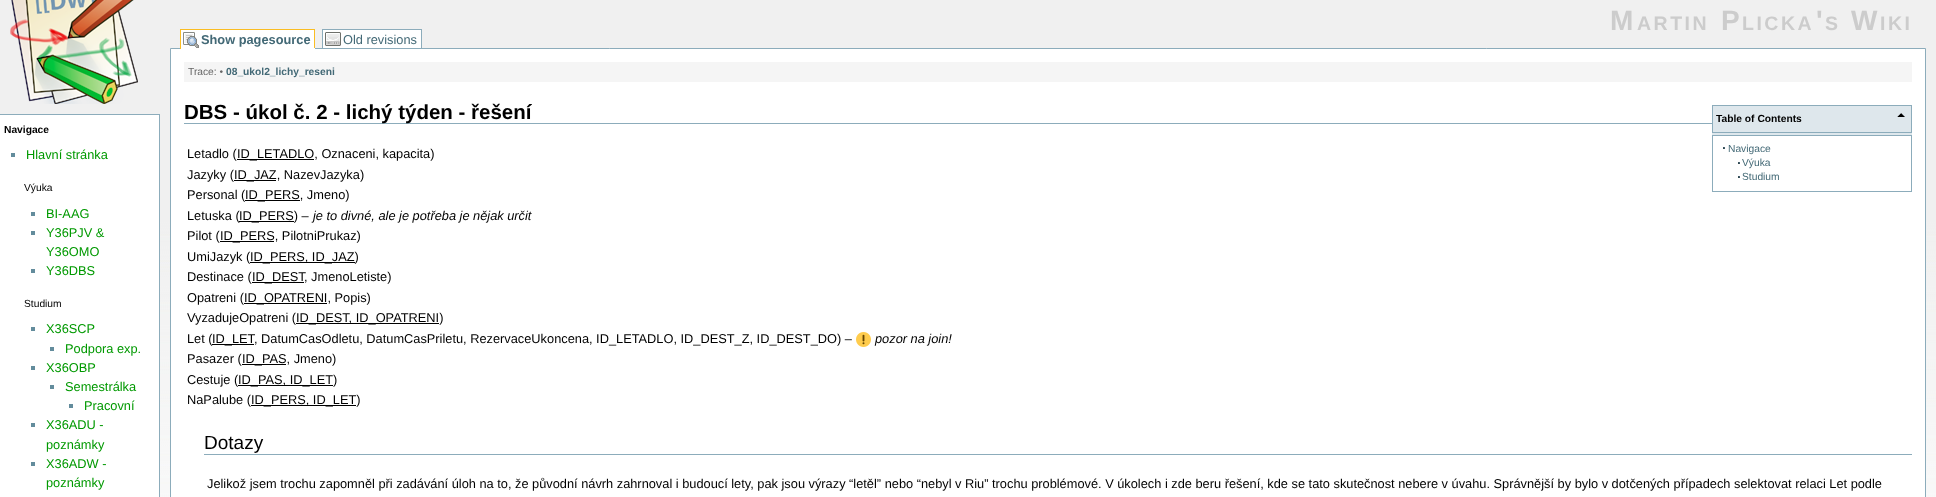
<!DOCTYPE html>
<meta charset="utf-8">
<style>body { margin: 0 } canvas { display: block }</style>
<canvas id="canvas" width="1936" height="497"></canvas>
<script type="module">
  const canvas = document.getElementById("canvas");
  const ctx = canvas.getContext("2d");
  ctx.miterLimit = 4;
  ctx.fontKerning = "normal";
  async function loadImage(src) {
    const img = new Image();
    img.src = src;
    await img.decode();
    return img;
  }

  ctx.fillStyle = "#ffffff";
  ctx.fillRect(0, 0, 1936, 497);
  ctx.drawImage(await loadImage("img1.png"), 0, 0, 1936, 497);
  ctx.drawImage(await loadImage("img2.png"), 10, 0, 128, 104);
  ctx.fillRect(0, 115, 159, 382);
  ctx.fillStyle = "#8cacbb";
  ctx.fillRect(0, 114, 160, 1);
  ctx.fillRect(159, 114, 1, 383);
  ctx.font = "bold 10.25px Liberation Sans";
  ctx.fillStyle = "#000000";
  ctx.fillText("Navigace", 4, 133);
  ctx.fillStyle = "#638c9c";
  ctx.fillRect(11, 153, 4, 4);
  ctx.font = "12.8px Liberation Sans";
  ctx.fillStyle = "#009900";
  ctx.fillText("Hlavní stránka", 26, 159);
  ctx.font = "10.25px Liberation Sans";
  ctx.fillStyle = "#000000";
  ctx.fillText("Výuka", 24, 191);
  ctx.fillStyle = "#638c9c";
  ctx.fillRect(31, 212, 4, 4);
  ctx.font = "12.8px Liberation Sans";
  ctx.fillStyle = "#009900";
  ctx.fillText("BI-AAG", 46, 218);
  ctx.fillStyle = "#638c9c";
  ctx.fillRect(31, 231, 4, 4);
  ctx.fillStyle = "#009900";
  ctx.fillText("Y36PJV &", 46, 237);
  ctx.fillText("Y36OMO", 46, 256);
  ctx.fillStyle = "#638c9c";
  ctx.fillRect(31, 269, 4, 4);
  ctx.fillStyle = "#009900";
  ctx.fillText("Y36DBS", 46, 275);
  ctx.font = "10.25px Liberation Sans";
  ctx.fillStyle = "#000000";
  ctx.fillText("Studium", 24, 307);
  ctx.fillStyle = "#638c9c";
  ctx.fillRect(31, 327, 4, 4);
  ctx.font = "12.8px Liberation Sans";
  ctx.fillStyle = "#009900";
  ctx.fillText("X36SCP", 46, 333);
  ctx.fillStyle = "#638c9c";
  ctx.fillRect(50, 347, 4, 4);
  ctx.fillStyle = "#009900";
  ctx.fillText("Podpora exp.", 65, 353);
  ctx.fillStyle = "#638c9c";
  ctx.fillRect(31, 366, 4, 4);
  ctx.fillStyle = "#009900";
  ctx.fillText("X36OBP", 46, 372);
  ctx.fillStyle = "#638c9c";
  ctx.fillRect(50, 385, 4, 4);
  ctx.fillStyle = "#009900";
  ctx.fillText("Semestrálka", 65, 391);
  ctx.fillStyle = "#638c9c";
  ctx.fillRect(69, 404, 4, 4);
  ctx.fillStyle = "#009900";
  ctx.fillText("Pracovní", 84, 410);
  ctx.fillStyle = "#638c9c";
  ctx.fillRect(31, 423, 4, 4);
  ctx.fillStyle = "#009900";
  ctx.fillText("X36ADU -", 46, 429);
  ctx.fillText("poznámky", 46, 449);
  ctx.fillStyle = "#638c9c";
  ctx.fillRect(31, 462, 4, 4);
  ctx.fillStyle = "#009900";
  ctx.fillText("X36ADW -", 46, 468);
  ctx.fillText("poznámky", 46, 487);
  ctx.letterSpacing = "2.5px";
  ctx.font = "bold 28px Liberation Sans";
  ctx.fillStyle = "#cccccc";
  ctx.fillText("M", 1610, 30);
  ctx.font = "bold 19.5px Liberation Sans";
  ctx.fillText("ARTIN", 1637, 30);
  ctx.font = "bold 28px Liberation Sans";
  ctx.fillText("P", 1721, 30);
  ctx.font = "bold 19.5px Liberation Sans";
  ctx.fillText("LICKA", 1742, 30);
  ctx.font = "bold 28px Liberation Sans";
  ctx.fillText("'", 1816, 30);
  ctx.font = "bold 19.5px Liberation Sans";
  ctx.fillText("S", 1825, 30);
  ctx.font = "bold 28px Liberation Sans";
  ctx.fillText("W", 1851, 30);
  ctx.font = "bold 19.5px Liberation Sans";
  ctx.fillText("IKI", 1880, 30);
  ctx.fillStyle = "#ffffff";
  ctx.fillRect(181, 30, 133, 18);
  ctx.drawImage(await loadImage("img3.png"), 183, 32, 16, 16);
  ctx.fillStyle = "#fabd23";
  ctx.fillRect(180, 29, 135, 1);
  ctx.fillStyle = "#ffffff";
  ctx.beginPath();
  ctx.rect(170.5, 48.5, 1755, 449);
  ctx.fill();
  ctx.strokeStyle = "#8cacbb";
  ctx.stroke();
  ctx.fillStyle = "#fabd23";
  ctx.fillRect(314, 29, 1, 20);
  ctx.fillStyle = "#ffffff";
  ctx.fillRect(180, 48, 135, 1);
  ctx.fillStyle = "#fabd23";
  ctx.fillRect(180, 29, 1, 20);
  ctx.letterSpacing = "0px";
  ctx.font = "bold 12.8px Liberation Sans";
  ctx.fillStyle = "#436976";
  ctx.fillText("Show pagesource", 201, 44);
  ctx.fillStyle = "#ffffff";
  ctx.fillRect(323, 30, 98, 18);
  ctx.drawImage(await loadImage("img4.png"), 325, 32, 16, 14);
  ctx.fillStyle = "#8cacbb";
  ctx.fillRect(322, 29, 100, 1);
  ctx.fillRect(421, 29, 1, 19);
  ctx.fillRect(322, 29, 1, 19);
  ctx.font = "12.8px Liberation Sans";
  ctx.fillStyle = "#436976";
  ctx.fillText("Old revisions", 343, 44);
  ctx.fillStyle = "#f5f5f5";
  ctx.fillRect(184, 62, 1728, 20);
  ctx.font = "10.25px Liberation Sans";
  ctx.fillStyle = "#666666";
  ctx.fillText("Trace: •", 188, 75);
  ctx.font = "bold 10.25px Liberation Sans";
  ctx.fillStyle = "#436976";
  ctx.fillText("08_ukol2_lichy_reseni", 226, 75);
  ctx.fillStyle = "#8cacbb";
  ctx.fillRect(184, 123, 1528, 1);
  ctx.font = "bold 20.5px Liberation Sans";
  ctx.fillStyle = "#000000";
  ctx.fillText("DBS - úkol č. 2 - lichý týden - řešení", 184, 119);
  ctx.fillStyle = "#dee7ec";
  ctx.fillRect(1712, 106, 200, 29);
  ctx.strokeRect(1712.5, 105.5, 199, 27);
  ctx.fillStyle = "#000000";
  ctx.beginPath();
  ctx.moveTo(1905, 117);
  ctx.lineTo(1897, 117);
  ctx.lineTo(1901, 113);
  ctx.closePath();
  ctx.fill();
  ctx.fillStyle = "#dee7ec";
  ctx.beginPath();
  ctx.moveTo(1897, 117);
  ctx.lineTo(1897, 109);
  ctx.lineTo(1901, 113);
  ctx.closePath();
  ctx.fill();
  ctx.font = "bold 10.25px Liberation Sans";
  ctx.fillStyle = "#000000";
  ctx.fillText("Table of Contents", 1716, 122);
  ctx.strokeRect(1712.5, 135.5, 199, 56);
  ctx.drawImage(await loadImage("img5.png"), 1723, 147, 2, 2);
  ctx.font = "10.25px Liberation Sans";
  ctx.fillStyle = "#436976";
  ctx.fillText("Navigace", 1728, 152);
  ctx.drawImage(await loadImage("img5.png"), 1738, 162, 2, 2);
  ctx.fillText("Výuka", 1742, 166);
  ctx.drawImage(await loadImage("img5.png"), 1738, 176, 2, 2);
  ctx.fillText("Studium", 1742, 180);
  ctx.font = "12.8px Liberation Sans";
  ctx.fillStyle = "#000000";
  ctx.fillText("Letadlo (", 187, 158);
  ctx.fillRect(237, 159, 77, 1);
  ctx.fillText("ID_LETADLO, Oznaceni, kapacita)", 237, 158);
  ctx.fillText("Jazyky (", 187, 179);
  ctx.fillRect(234, 180, 42, 1);
  ctx.fillText("ID_JAZ, NazevJazyka)", 234, 179);
  ctx.fillText("Personal (", 187, 199);
  ctx.fillRect(245, 200, 55, 1);
  ctx.fillText("ID_PERS, Jmeno)", 245, 199);
  ctx.fillText("Letuska (", 187, 220);
  ctx.fillRect(239, 221, 55, 1);
  ctx.fillText("ID_PERS) –", 239, 220);
  ctx.font = "italic 12.8px Liberation Sans";
  ctx.fillText("je to divné, ale je potřeba je nějak určit", 313, 220);
  ctx.font = "12.8px Liberation Sans";
  ctx.fillText("Pilot (", 187, 240);
  ctx.fillRect(220, 241, 54, 1);
  ctx.fillText("ID_PERS, PilotniPrukaz)", 220, 240);
  ctx.fillText("UmiJazyk (", 187, 261);
  ctx.fillRect(250, 262, 105, 1);
  ctx.fillText("ID_PERS, ID_JAZ)", 250, 261);
  ctx.fillText("Destinace (", 187, 281);
  ctx.fillRect(252, 282, 52, 1);
  ctx.fillText("ID_DEST", 252, 281);
  ctx.fillText(", JmenoLetiste)", 304, 281);
  ctx.fillText("Opatreni (", 187, 302);
  ctx.fillRect(244, 303, 83, 1);
  ctx.fillText("ID_OPATRENI, Popis)", 244, 302);
  ctx.fillText("VyzadujeOpatreni (", 187, 322);
  ctx.fillRect(296, 323, 143, 1);
  ctx.fillText("ID_DEST, ID_OPATRENI)", 296, 322);
  ctx.fillText("Let (", 187, 343);
  ctx.fillRect(212, 344, 42, 1);
  ctx.fillText("ID_LET", 212, 343);
  ctx.fillText(", DatumCasOdletu, DatumCasPriletu, RezervaceUkoncena, ID_LETADLO, ID_DEST_Z, ID_DEST_DO) –", 254, 343);
  ctx.drawImage(await loadImage("img6.png"), 856, 332, 15, 15);
  ctx.font = "italic 12.8px Liberation Sans";
  ctx.fillText("pozor na join!", 875, 343);
  ctx.font = "12.8px Liberation Sans";
  ctx.fillText("Pasazer (", 187, 363);
  ctx.fillRect(242, 364, 44, 1);
  ctx.fillText("ID_PAS, Jmeno)", 242, 363);
  ctx.fillText("Cestuje (", 187, 384);
  ctx.fillRect(238, 385, 95, 1);
  ctx.fillText("ID_PAS, ID_LET)", 238, 384);
  ctx.fillText("NaPalube (", 187, 404);
  ctx.fillRect(251, 405, 105, 1);
  ctx.fillText("ID_PERS, ID_LET)", 251, 404);
  ctx.fillStyle = "#8cacbb";
  ctx.fillRect(204, 454, 1708, 1);
  ctx.font = "19px Liberation Sans";
  ctx.fillStyle = "#000000";
  ctx.fillText("Dotazy", 204, 449);
  ctx.font = "12.8px Liberation Sans";
  ctx.fillText("Jelikož jsem trochu zapomněl při zadávání úloh na to, že původní návrh zahrnoval i budoucí lety, pak jsou výrazy “letěl” nebo “nebyl v Riu” trochu problémové. V úkolech i zde beru řešení, kde se tato skutečnost nebere v úvahu. Správnější by bylo v dotčených případech selektovat relaci Let podle", 207, 488);
</script>
